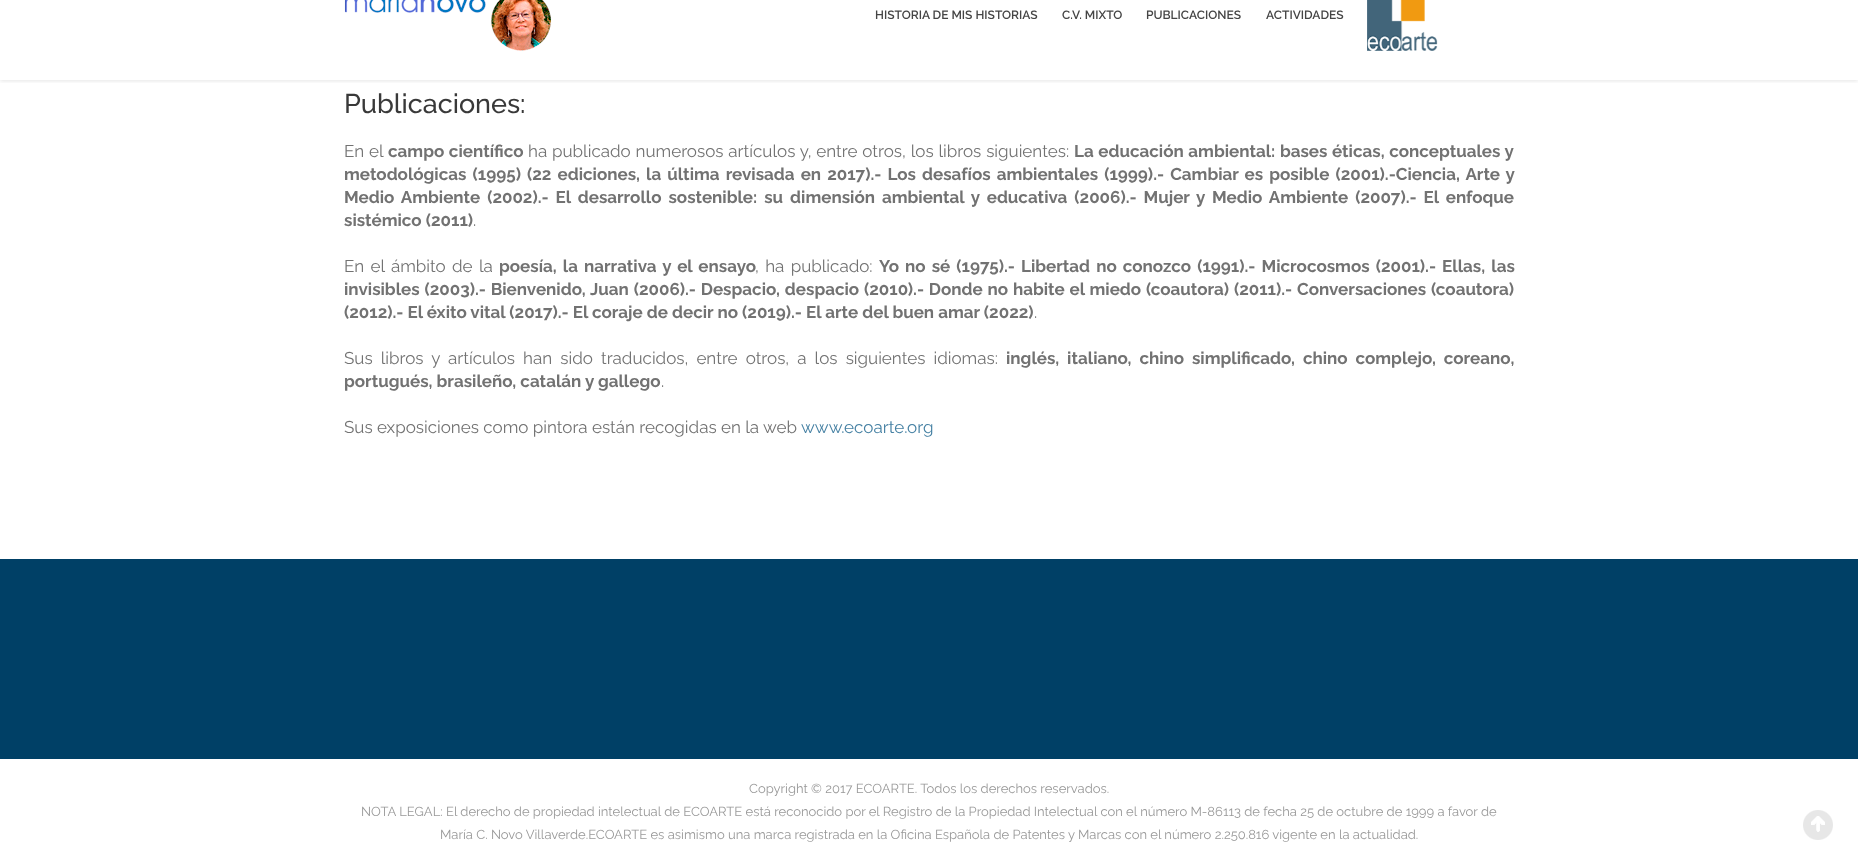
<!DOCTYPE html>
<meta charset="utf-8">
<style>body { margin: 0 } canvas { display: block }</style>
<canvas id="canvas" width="1858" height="867"></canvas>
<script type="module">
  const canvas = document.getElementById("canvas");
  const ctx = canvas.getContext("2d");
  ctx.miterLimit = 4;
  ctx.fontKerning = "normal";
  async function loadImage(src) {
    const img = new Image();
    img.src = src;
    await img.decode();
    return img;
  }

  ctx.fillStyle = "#ffffff";
  ctx.fillRect(0, 0, 1858, 867);
  ctx.save();
  ctx.beginPath();
  ctx.rect(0, 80, 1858, 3);
  ctx.clip();
  ctx.fillStyle = "rgba(0, 0, 0, 0.1)";
  ctx.filter = "blur(2px)";
  ctx.beginPath();
  ctx.rect(0, 1, 1858, 80);
  ctx.fill();
  ctx.filter = "none";
  ctx.restore();
  ctx.drawImage(await loadImage("img1.png"), 344, 0, 208, 51);
  ctx.font = "600 12px Raleway";
  ctx.fillStyle = "#454545";
  ctx.fillText("HISTORIA DE MIS HISTORIAS", 875, 19);
  ctx.fillText("C.V. MIXTO", 1062, 19);
  ctx.fillText("PUBLICACIONES", 1146, 19);
  ctx.fillText("ACTIVIDADES", 1266, 19);
  ctx.drawImage(await loadImage("img2.png"), 1367, 0, 71, 51);
  ctx.font = "500 27px Raleway";
  ctx.fillStyle = "#393939";
  ctx.fillText("Publicaciones:", 344, 113);
  ctx.wordSpacing = "0.5px";
  ctx.font = "17px Raleway";
  ctx.fillStyle = "#727272";
  ctx.fillText("En el", 344, 157);
  ctx.font = "bold 17px Raleway";
  ctx.fillText("campo científico", 388, 157);
  ctx.font = "17px Raleway";
  ctx.fillText("ha publicado numerosos artículos y, entre otros, los libros siguientes:", 528, 157);
  ctx.font = "bold 17px Raleway";
  ctx.fillText("La educación ambiental: bases éticas, conceptuales y", 1074, 157);
  ctx.wordSpacing = "2px";
  ctx.fillText("metodológicas (1995) (22 ediciones, la última revisada en 2017).- Los desafíos ambientales (1999).- Cambiar es posible (2001).-Ciencia, Arte y", 344, 180);
  ctx.wordSpacing = "2.9px";
  ctx.fillText("Medio Ambiente (2002).- El desarrollo sostenible: su dimensión ambiental y educativa (2006).- Mujer y Medio Ambiente (2007).- El enfoque", 344, 203);
  ctx.wordSpacing = "0px";
  ctx.fillText("sistémico (2011)", 344, 226);
  ctx.font = "17px Raleway";
  ctx.fillText(".", 473, 226);
  ctx.wordSpacing = "2px";
  ctx.fillText("En el ámbito de la", 344, 272);
  ctx.font = "bold 17px Raleway";
  ctx.fillText("poesía, la narrativa y el ensayo", 499, 272);
  ctx.font = "17px Raleway";
  ctx.fillText(", ha publicado:", 755, 272);
  ctx.font = "bold 17px Raleway";
  ctx.fillText("Yo no sé (1975).- Libertad no conozco (1991).- Microcosmos (2001).- Ellas, las", 879, 272);
  ctx.wordSpacing = "0.75px";
  ctx.fillText("invisibles (2003).- Bienvenido, Juan (2006).- Despacio, despacio (2010).- Donde no habite el miedo (coautora) (2011).- Conversaciones (coautora)", 344, 295);
  ctx.wordSpacing = "0px";
  ctx.fillText("(2012).- El éxito vital (2017).- El coraje de decir no (2019).- El arte del buen amar (2022)", 344, 318);
  ctx.font = "17px Raleway";
  ctx.fillText(".", 1034, 318);
  ctx.wordSpacing = "3.75px";
  ctx.fillText("Sus libros y artículos han sido traducidos, entre otros, a los siguientes idiomas:", 344, 364);
  ctx.font = "bold 17px Raleway";
  ctx.fillText("inglés, italiano, chino simplificado, chino complejo, coreano,", 1006, 364);
  ctx.wordSpacing = "0px";
  ctx.fillText("portugués, brasileño, catalán y gallego", 344, 387);
  ctx.font = "17px Raleway";
  ctx.fillText(".", 661, 387);
  ctx.fillText("Sus exposiciones como pintora están recogidas en la web", 344, 433);
  ctx.fillStyle = "#4580a3";
  ctx.fillText("www.ecoarte.org", 801, 433);
  ctx.fillStyle = "#004066";
  ctx.fillRect(0, 559, 1858, 200);
  ctx.font = "13px Raleway";
  ctx.fillStyle = "#999999";
  ctx.fillText("Copyright © 2017 ECOARTE. Todos los derechos reservados.", 749, 793);
  ctx.fillText("NOTA LEGAL: El derecho de propiedad intelectual de ECOARTE está reconocido por el Registro de la Propiedad Intelectual con el número M-86113 de fecha 25 de octubre de 1999 a favor de", 361, 816);
  ctx.fillText("María C. Novo Villaverde.ECOARTE es asimismo una marca registrada en la Oficina Española de Patentes y Marcas con el número 2.250.816 vigente en la actualidad.", 440, 839);
  ctx.drawImage(await loadImage("img3.png"), 1803, 810, 30, 30);
</script>
